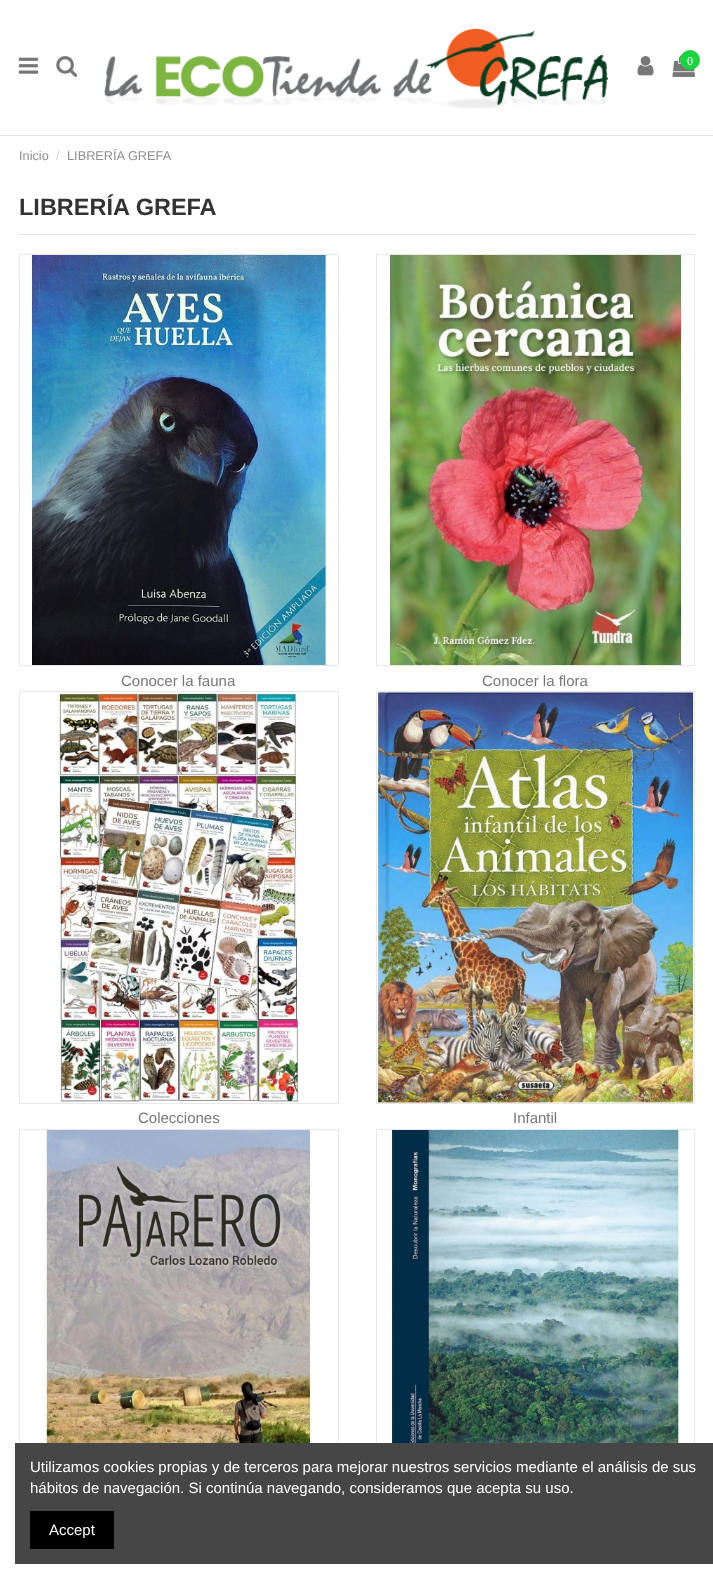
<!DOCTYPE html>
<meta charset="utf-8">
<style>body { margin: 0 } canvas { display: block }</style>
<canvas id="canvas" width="713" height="1578"></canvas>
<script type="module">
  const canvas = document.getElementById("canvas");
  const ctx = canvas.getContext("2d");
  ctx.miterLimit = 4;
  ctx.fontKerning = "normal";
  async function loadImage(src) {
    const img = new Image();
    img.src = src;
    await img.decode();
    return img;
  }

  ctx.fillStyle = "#ffffff";
  ctx.fillRect(0, 0, 713, 1578);
  ctx.fillStyle = "#e3e3e3";
  ctx.fillRect(0, 135, 713, 1);
  ctx.drawImage(await loadImage("img1.png"), 18, 57, 21, 17);
  ctx.drawImage(await loadImage("img2.png"), 56, 56, 22, 21);
  ctx.drawImage(await loadImage("img3.png"), 103, 28, 505, 81);
  ctx.drawImage(await loadImage("img4.png"), 637, 56, 17, 20);
  ctx.drawImage(await loadImage("img5.png"), 672, 54, 23, 23);
  ctx.fillStyle = "#1bd33f";
  ctx.beginPath();
  ctx.arc(690, 60, 10, 0, Math.PI * 2);
  ctx.fill();
  ctx.font = "12px Liberation Serif";
  ctx.fillStyle = "#ffffff";
  ctx.fillText("0", 687, 65);
  ctx.font = "12.75px Liberation Sans";
  ctx.fillStyle = "#8f8f8f";
  ctx.fillText("Inicio", 19, 160);
  ctx.fillStyle = "#d2d2d2";
  ctx.fillText("/", 56, 160);
  ctx.fillStyle = "#8f8f8f";
  ctx.fillText("LIBRERÍA GREFA", 67, 160);
  ctx.fillStyle = "#e3e3e3";
  ctx.fillRect(19, 234, 676, 1);
  ctx.font = "bold 23.5px Liberation Sans";
  ctx.fillStyle = "#333333";
  ctx.fillText("LIBRERÍA GREFA", 19, 215);
  ctx.strokeStyle = "#e8e8e8";
  ctx.strokeRect(19.5, 254.5, 319, 411);
  ctx.drawImage(await loadImage("img6.png"), 30, 255, 302, 410);
  ctx.font = "15px Liberation Sans";
  ctx.fillStyle = "#777777";
  ctx.fillText("Conocer la fauna", 121, 686);
  ctx.strokeRect(376.5, 254.5, 318, 411);
  ctx.drawImage(await loadImage("img7.png"), 389, 255, 302, 410);
  ctx.fillText("Conocer la flora", 482, 686);
  ctx.strokeRect(19.5, 691.5, 319, 412);
  ctx.drawImage(await loadImage("img8.png"), 54, 692, 247, 411);
  ctx.fillText("Colecciones", 138, 1123);
  ctx.strokeRect(376.5, 691.5, 318, 412);
  ctx.drawImage(await loadImage("img9.png"), 377, 692, 317, 411);
  ctx.fillText("Infantil", 513, 1123);
  ctx.strokeRect(19.5, 1129.5, 319, 411);
  ctx.drawImage(await loadImage("img10.png"), 42, 1130, 270, 313);
  ctx.strokeRect(376.5, 1129.5, 318, 411);
  ctx.drawImage(await loadImage("img11.png"), 391, 1130, 289, 313);
  ctx.fillStyle = "#464646";
  ctx.fillRect(15, 1443, 698, 121);
  ctx.fillStyle = "#ffffff";
  ctx.fillText("Utilizamos cookies propias y de terceros para mejorar nuestros servicios mediante el análisis de sus", 30, 1472);
  ctx.fillText("hábitos de navegación. Si continúa navegando, consideramos que acepta su uso.", 30, 1493);
  ctx.fillStyle = "#000000";
  ctx.fillRect(30, 1511, 84, 38);
  ctx.fillStyle = "#ffffff";
  ctx.fillText("Accept", 49, 1535);
</script>
